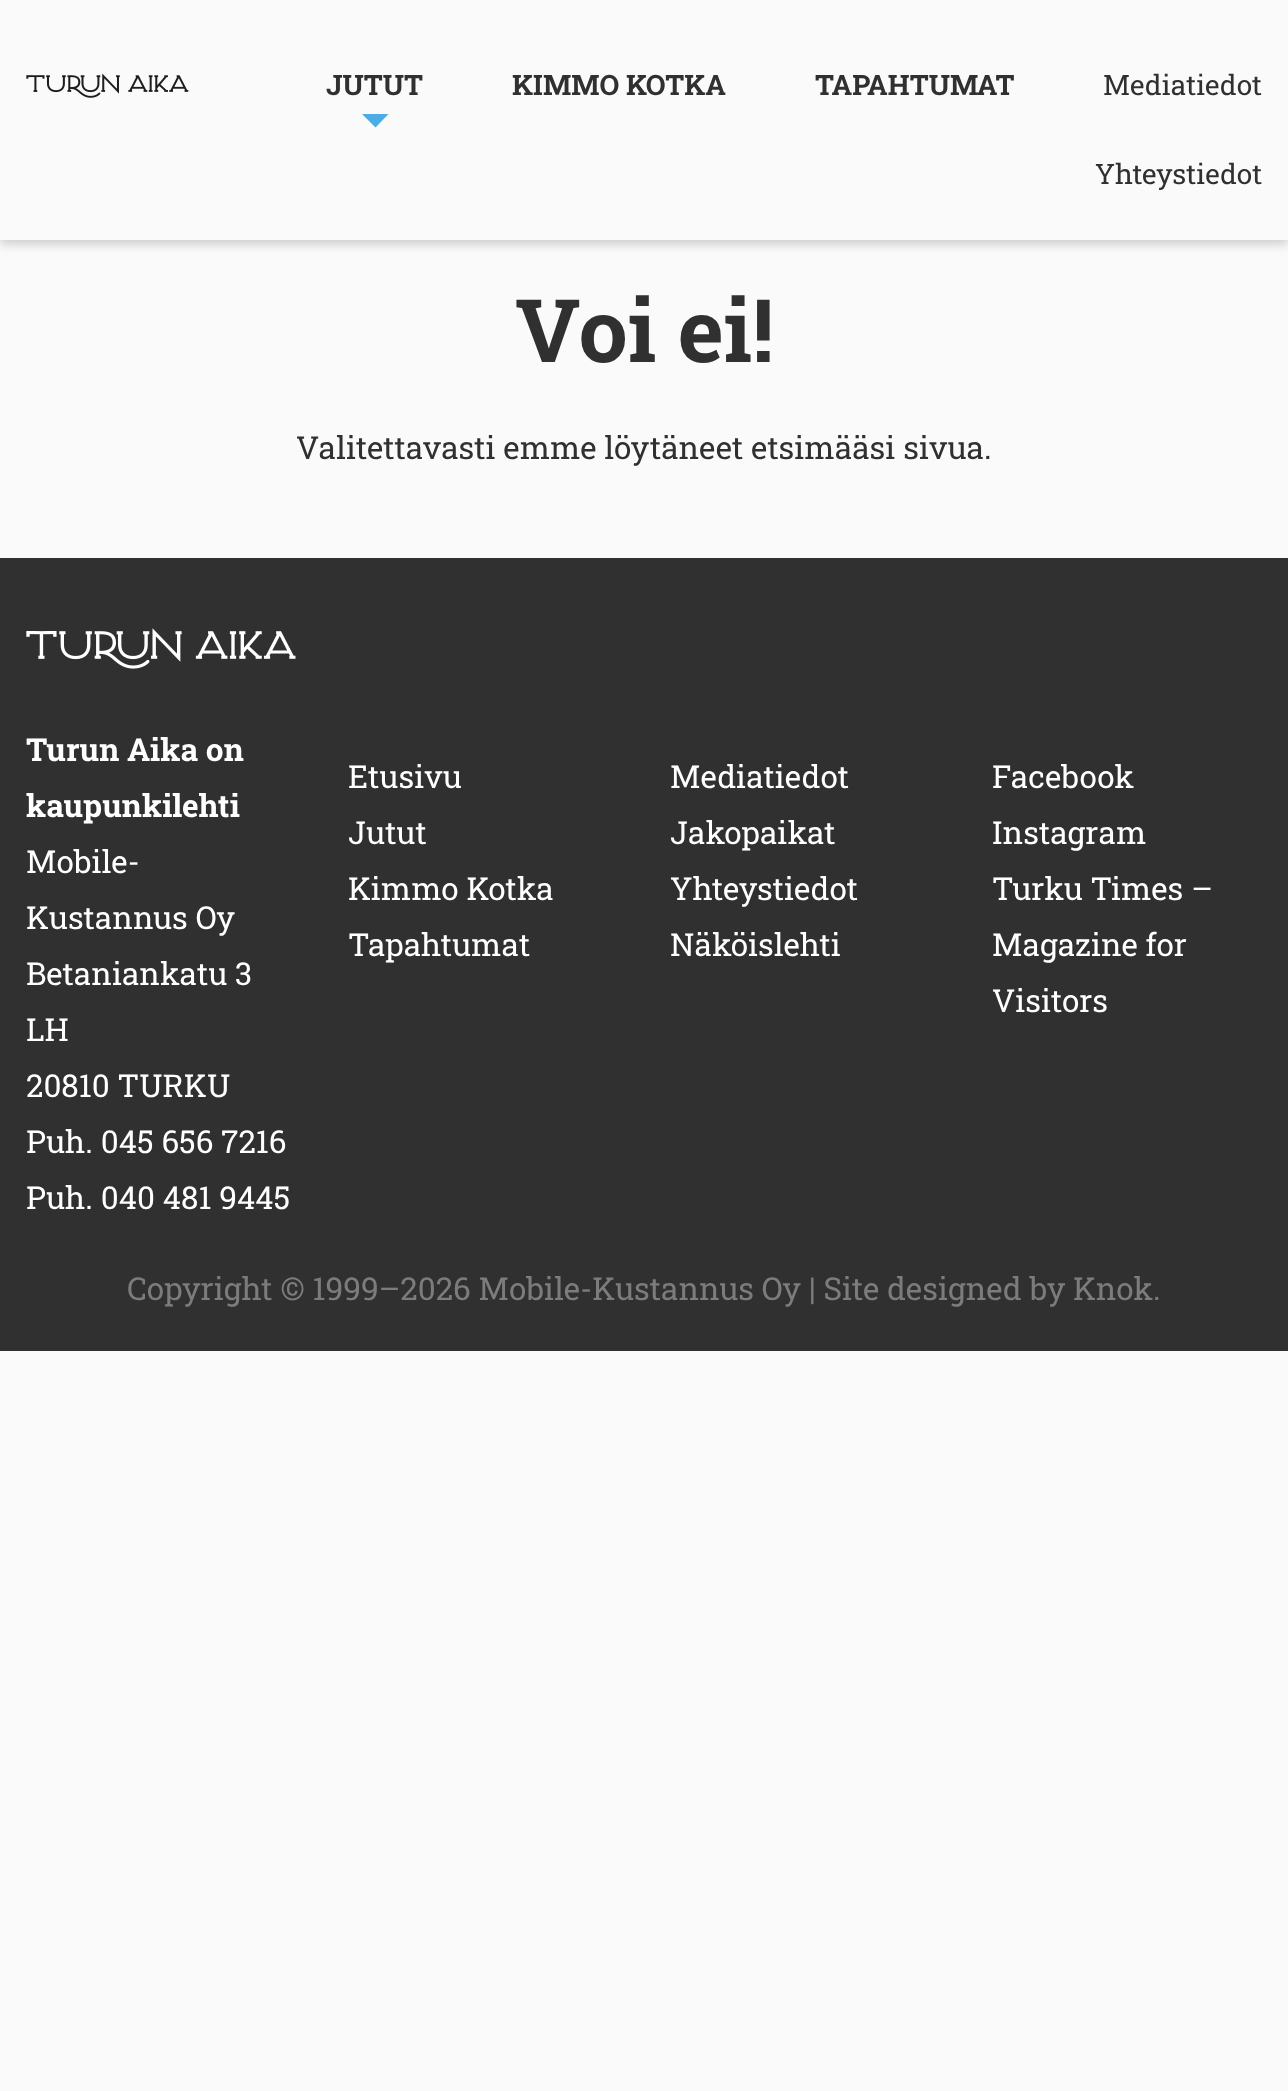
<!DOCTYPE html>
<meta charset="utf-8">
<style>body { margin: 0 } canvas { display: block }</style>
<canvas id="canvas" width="1288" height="2091"></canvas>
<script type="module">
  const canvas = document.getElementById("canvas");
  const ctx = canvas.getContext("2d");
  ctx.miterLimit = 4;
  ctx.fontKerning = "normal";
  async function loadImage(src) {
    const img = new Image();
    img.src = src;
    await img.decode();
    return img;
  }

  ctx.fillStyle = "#fafafa";
  ctx.fillRect(0, 0, 1288, 2091);
  ctx.save();
  ctx.beginPath();
  ctx.moveTo(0, 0);
  ctx.lineTo(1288, 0);
  ctx.lineTo(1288, 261);
  ctx.lineTo(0, 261);
  ctx.closePath();
  ctx.moveTo(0, 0);
  ctx.lineTo(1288, 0);
  ctx.lineTo(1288, 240);
  ctx.lineTo(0, 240);
  ctx.closePath();
  ctx.clip("evenodd");
  ctx.fillStyle = "rgba(0, 0, 0, 0.16)";
  ctx.filter = "blur(5px)";
  ctx.beginPath();
  ctx.rect(0, 5, 1288, 240);
  ctx.fill();
  ctx.filter = "none";
  ctx.restore();
  ctx.drawImage(await loadImage("img1.png"), 26, 74, 163, 24);
  ctx.fillStyle = "#4cade6";
  ctx.beginPath();
  ctx.moveTo(362, 114);
  ctx.lineTo(375.5, 127.5);
  ctx.lineTo(388.5, 114);
  ctx.closePath();
  ctx.fill();
  ctx.font = "bold 28px Roboto Slab";
  ctx.fillStyle = "#303030";
  ctx.fillText("JUTUT", 326, 95);
  ctx.fillText("KIMMO KOTKA", 512, 95);
  ctx.fillText("TAPAHTUMAT", 815, 95);
  ctx.font = "28px Roboto Slab";
  ctx.fillText("Mediatiedot", 1103, 95);
  ctx.fillText("Yhteystiedot", 1095, 184);
  ctx.font = "bold 87.5px Roboto Slab";
  ctx.fillText("Voi ei!", 515, 362);
  ctx.font = "31.5px Roboto Slab";
  ctx.fillText("Valitettavasti emme löytäneet etsimääsi sivua.", 296, 459);
  ctx.fillRect(0, 558, 1288, 793);
  ctx.drawImage(await loadImage("img2.png"), 26, 628, 270, 41);
  ctx.font = "bold 31.5px Roboto Slab";
  ctx.fillStyle = "#ffffff";
  ctx.fillText("Turun Aika on", 26, 761);
  ctx.fillText("kaupunkilehti", 26, 817);
  ctx.font = "31.5px Roboto Slab";
  ctx.fillText("Mobile-", 26, 873);
  ctx.fillText("Kustannus Oy", 26, 929);
  ctx.fillText("Betaniankatu 3", 26, 985);
  ctx.fillText("LH", 26, 1041);
  ctx.fillText("20810 TURKU", 26, 1097);
  ctx.fillText("Puh. 045 656 7216", 26, 1153);
  ctx.fillText("Puh. 040 481 9445", 26, 1209);
  ctx.fillText("Etusivu", 348, 788);
  ctx.fillText("Jutut", 348, 844);
  ctx.fillText("Kimmo Kotka", 348, 900);
  ctx.fillText("Tapahtumat", 348, 956);
  ctx.fillText("Mediatiedot", 670, 788);
  ctx.fillText("Jakopaikat", 670, 844);
  ctx.fillText("Yhteystiedot", 670, 900);
  ctx.fillText("Näköislehti", 670, 956);
  ctx.fillText("Facebook", 992, 788);
  ctx.fillText("Instagram", 992, 844);
  ctx.fillText("Turku Times –", 992, 900);
  ctx.fillText("Magazine for", 992, 956);
  ctx.fillText("Visitors", 992, 1012);
  ctx.fillStyle = "#7c7c7c";
  ctx.fillText("Copyright © 1999–2026 Mobile-Kustannus Oy | Site designed by Knok.", 127, 1300);
</script>
